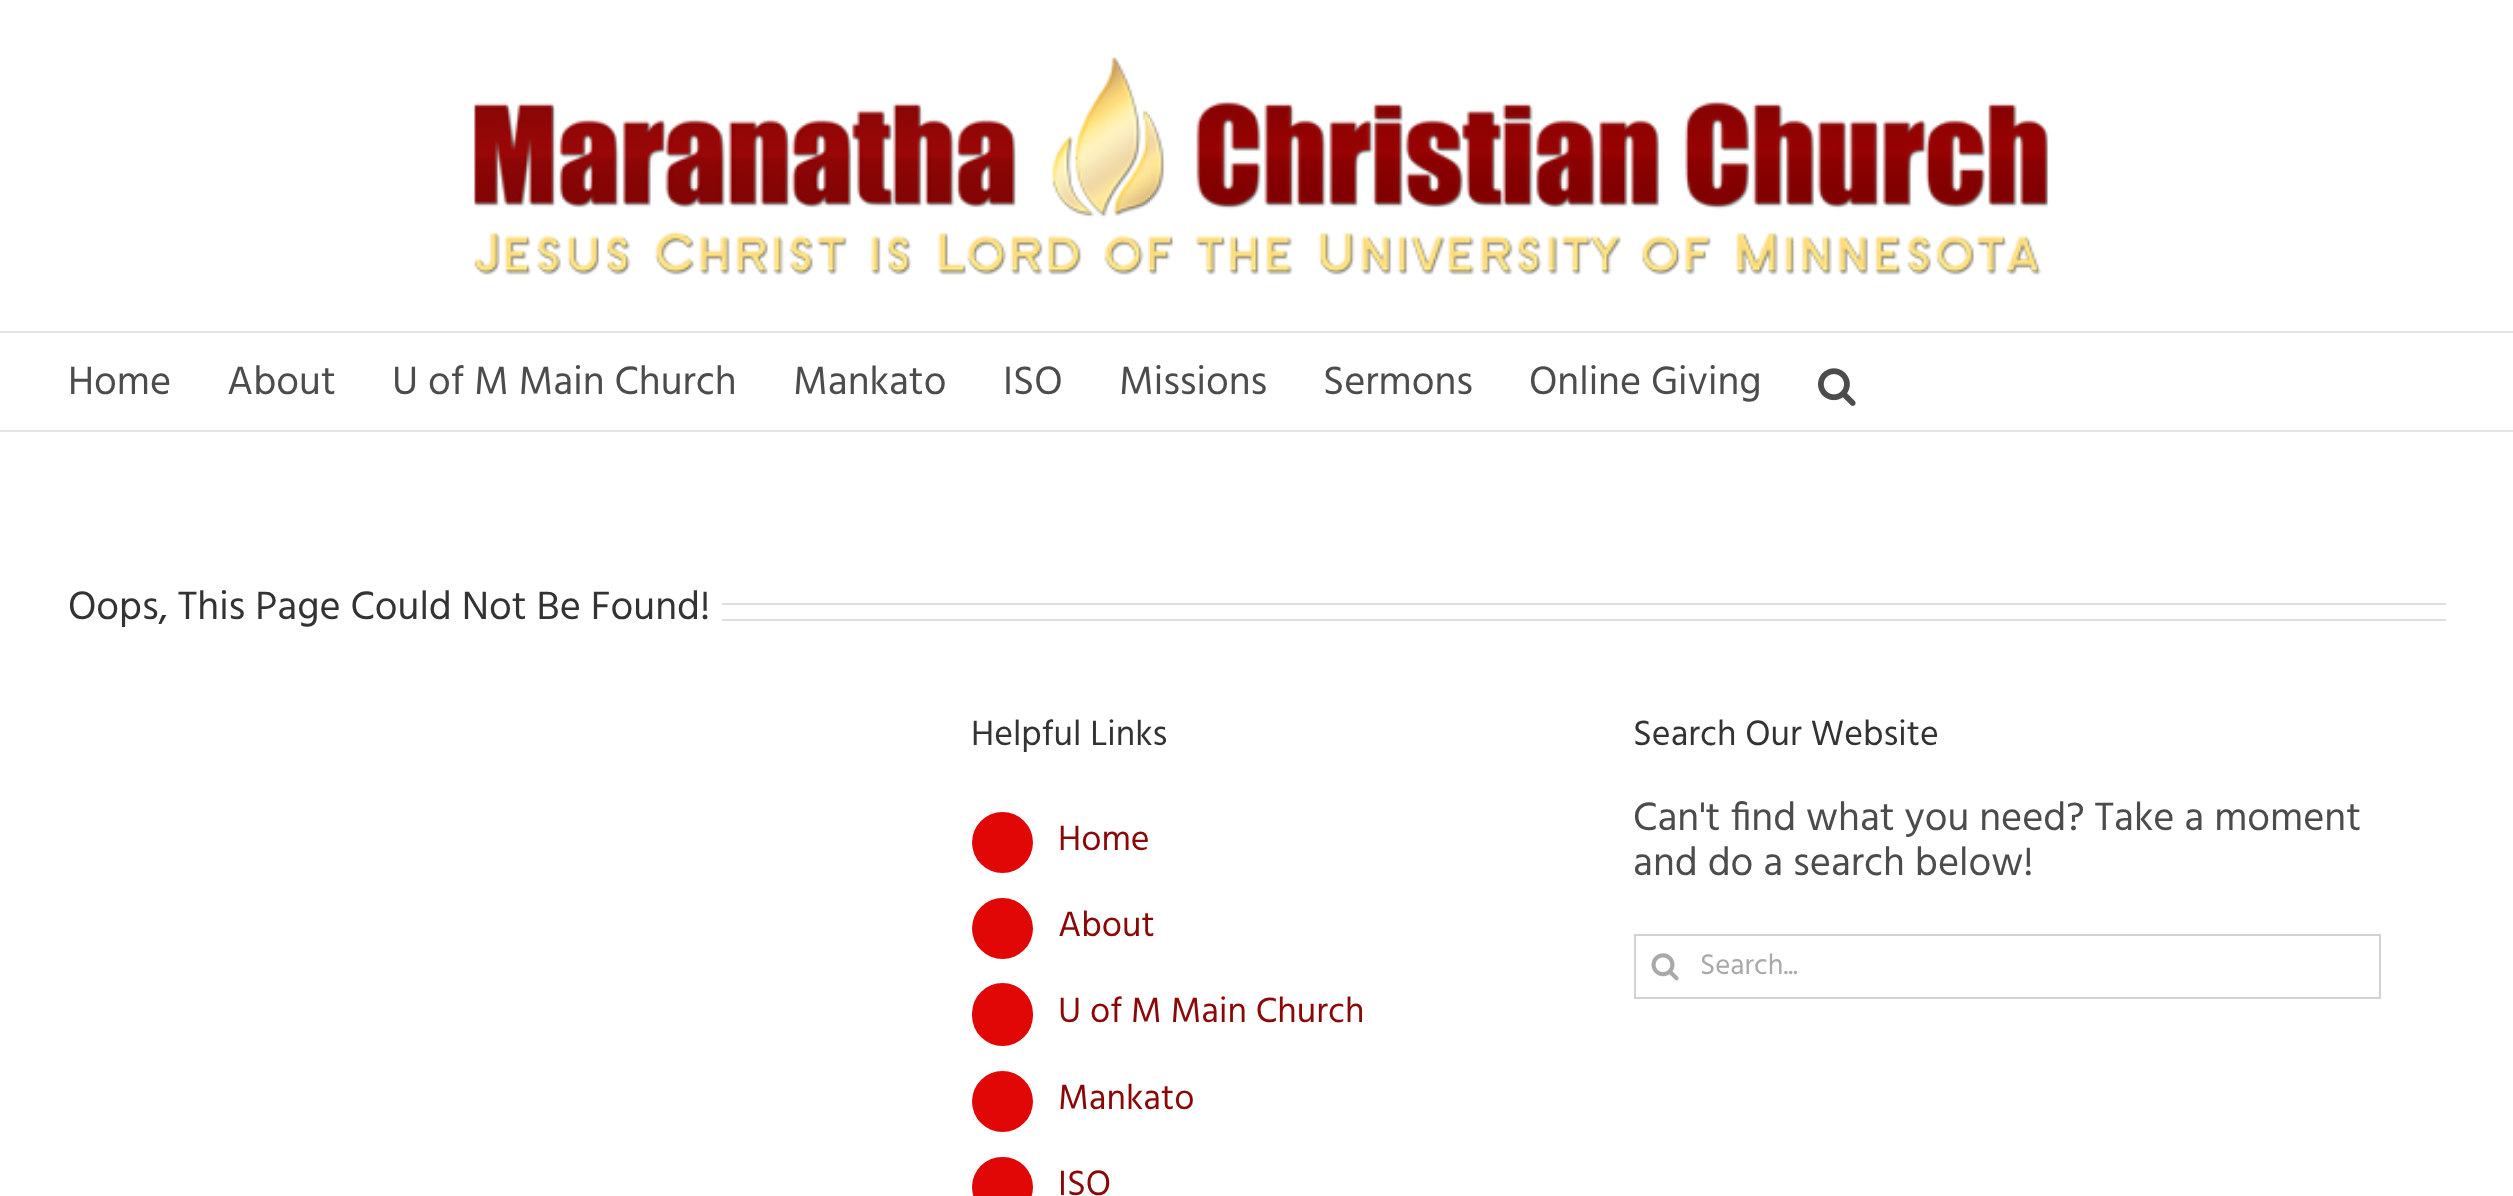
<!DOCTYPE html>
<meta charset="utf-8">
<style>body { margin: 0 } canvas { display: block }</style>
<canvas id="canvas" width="2513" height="1196"></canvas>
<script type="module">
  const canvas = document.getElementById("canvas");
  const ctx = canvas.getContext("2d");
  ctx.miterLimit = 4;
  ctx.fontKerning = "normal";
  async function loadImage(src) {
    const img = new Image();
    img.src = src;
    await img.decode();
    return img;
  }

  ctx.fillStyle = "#ffffff";
  ctx.fillRect(0, 0, 2513, 1196);
  ctx.drawImage(await loadImage("img1.png"), 474, 57, 1575, 218);
  ctx.fillStyle = "#e5e5e5";
  ctx.fillRect(0, 331, 2513, 2);
  ctx.fillRect(0, 430, 2513, 2);
  ctx.font = "40.5px Hind";
  ctx.fillStyle = "#4c4c4c";
  ctx.fillText("Home", 68, 394);
  ctx.fillText("About", 227, 394);
  ctx.fillText("U of M Main Church", 392, 394);
  ctx.fillText("Mankato", 793, 394);
  ctx.fillText("ISO", 1003, 394);
  ctx.fillText("Missions", 1119, 394);
  ctx.fillText("Sermons", 1323, 394);
  ctx.fillText("Online Giving", 1529, 394);
  ctx.drawImage(await loadImage("img2.png"), 1818, 368, 38, 38);
  ctx.fillStyle = "#333333";
  ctx.fillText("Oops, This Page Could Not Be Found!", 68, 619);
  ctx.fillStyle = "#e0dede";
  ctx.fillRect(722, 603, 1724, 2);
  ctx.fillRect(722, 619, 1724, 2);
  ctx.font = "36px Hind";
  ctx.fillStyle = "#333333";
  ctx.fillText("Helpful Links", 971, 745);
  ctx.fillStyle = "#e10707";
  ctx.beginPath();
  ctx.arc(1002.5, 842.5, 30.5, 0, Math.PI * 2);
  ctx.fill();
  ctx.fillStyle = "#8a0808";
  ctx.fillText("Home", 1058, 850);
  ctx.fillStyle = "#e10707";
  ctx.beginPath();
  ctx.arc(1002.5, 928.5, 30.5, 0, Math.PI * 2);
  ctx.fill();
  ctx.fillStyle = "#8a0808";
  ctx.fillText("About", 1058, 936);
  ctx.fillStyle = "#e10707";
  ctx.beginPath();
  ctx.roundRect(972, 983, 61, 63, 30.5);
  ctx.fill();
  ctx.fillStyle = "#8a0808";
  ctx.fillText("U of M Main Church", 1058, 1022);
  ctx.fillStyle = "#e10707";
  ctx.beginPath();
  ctx.arc(1002.5, 1101.5, 30.5, 0, Math.PI * 2);
  ctx.fill();
  ctx.fillStyle = "#8a0808";
  ctx.fillText("Mankato", 1058, 1109);
  ctx.fillStyle = "#e10707";
  ctx.beginPath();
  ctx.roundRect(972, 1157, 61, 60, 30);
  ctx.fill();
  ctx.fillStyle = "#8a0808";
  ctx.fillText("ISO", 1058, 1195);
  ctx.fillStyle = "#333333";
  ctx.fillText("Search Our Website", 1633, 745);
  ctx.font = "40.5px Hind";
  ctx.fillStyle = "#4c4c4c";
  ctx.fillText("Can't find what you need? Take a moment", 1633, 830);
  ctx.fillText("and do a search below!", 1633, 875);
  ctx.strokeStyle = "#d2d2d2";
  ctx.lineWidth = 2;
  ctx.strokeRect(1635, 935, 745, 63);
  ctx.drawImage(await loadImage("img3.png"), 1651, 953, 28, 28);
  ctx.font = "29px Hind";
  ctx.fillStyle = "#aaa9a9";
  ctx.fillText("Search...", 1700, 974);
</script>
